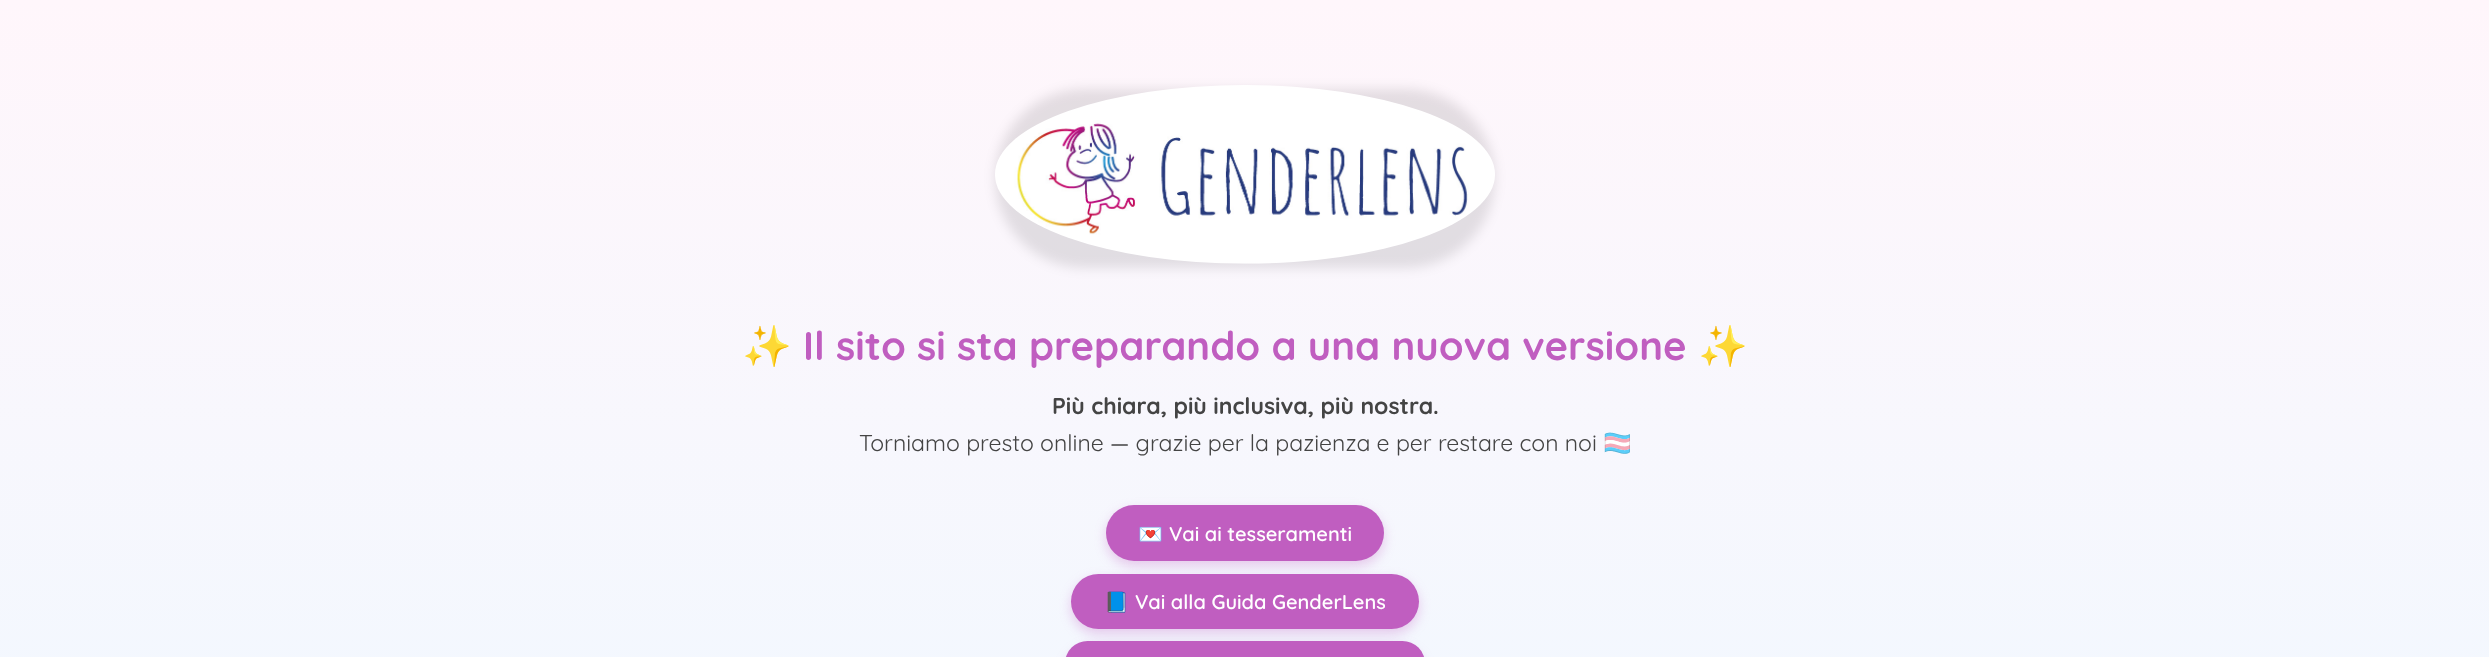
<!DOCTYPE html>
<meta charset="utf-8">
<style>body { margin: 0 } canvas { display: block }</style>
<canvas id="canvas" width="2489" height="657"></canvas>
<script type="module">
  const canvas = document.getElementById("canvas");
  const ctx = canvas.getContext("2d");
  ctx.miterLimit = 4;
  ctx.fontKerning = "normal";
  async function loadImage(src) {
    const img = new Image();
    img.src = src;
    await img.decode();
    return img;
  }
  let gradient;

  ctx.fillStyle = "#ffffff";
  ctx.fillRect(0, 0, 2489, 657);
  gradient = ctx.createLinearGradient(1245, 0, 1245, 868);
  gradient.addColorStop(0, "#fff6fb");
  gradient.addColorStop(1, "#f0f8ff");
  ctx.fillStyle = gradient;
  ctx.fillRect(0, 0, 2489, 657);
  ctx.fillStyle = "rgba(0, 0, 0, 0.1)";
  ctx.filter = "blur(6px)";
  ctx.beginPath();
  ctx.roundRect(995, 89, 500, 179, 89.5);
  ctx.fill();
  ctx.filter = "none";
  ctx.drawImage(await loadImage("img1.png"), 995, 85, 500, 179);
  ctx.font = "bold 40px Noto Color Emoji";
  ctx.fillStyle = "#c05ec0";
  ctx.fillText("✨", 742, 360);
  ctx.font = "bold 40px Quicksand";
  ctx.fillText("Il sito si sta preparando a una nuova versione", 803, 360);
  ctx.font = "bold 40px Noto Color Emoji";
  ctx.fillText("✨", 1698, 360);
  ctx.font = "bold 23px Quicksand";
  ctx.fillStyle = "#444444";
  ctx.fillText("Più chiara, più inclusiva, più nostra.", 1052, 414);
  ctx.font = "23px Quicksand";
  ctx.fillText("Torniamo presto online — grazie per la pazienza e per restare con noi", 859, 451);
  ctx.font = "23px Noto Color Emoji";
  ctx.fillText("🏳️‍⚧️", 1603, 451);
  ctx.fillStyle = "rgba(192, 94, 192, 0.3)";
  ctx.filter = "blur(6px)";
  ctx.beginPath();
  ctx.roundRect(1106, 510, 278, 56, 28);
  ctx.fill();
  ctx.filter = "none";
  ctx.fillStyle = "#c05ec0";
  ctx.beginPath();
  ctx.roundRect(1106, 505, 278, 56, 28);
  ctx.fill();
  ctx.font = "bold 20px Noto Color Emoji";
  ctx.fillStyle = "#ffffff";
  ctx.fillText("💌", 1138, 541);
  ctx.font = "600 20px Quicksand";
  ctx.fillText("Vai ai tesseramenti", 1169, 541);
  ctx.fillStyle = "rgba(192, 94, 192, 0.3)";
  ctx.filter = "blur(6px)";
  ctx.beginPath();
  ctx.roundRect(1071, 579, 348, 55, 27.5);
  ctx.fill();
  ctx.filter = "none";
  ctx.fillStyle = "#c05ec0";
  ctx.beginPath();
  ctx.roundRect(1071, 574, 348, 55, 27.5);
  ctx.fill();
  ctx.font = "bold 20px Noto Color Emoji";
  ctx.fillStyle = "#ffffff";
  ctx.fillText("📘", 1104, 609);
  ctx.font = "600 20px Quicksand";
  ctx.fillText("Vai alla Guida GenderLens", 1135, 609);
  ctx.fillStyle = "rgba(192, 94, 192, 0.3)";
  ctx.filter = "blur(6px)";
  ctx.beginPath();
  ctx.roundRect(1065, 646, 360, 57, 28.5);
  ctx.fill();
  ctx.filter = "none";
  ctx.fillStyle = "#c05ec0";
  ctx.beginPath();
  ctx.roundRect(1065, 641, 360, 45, 28.5);
  ctx.fill();
</script>
